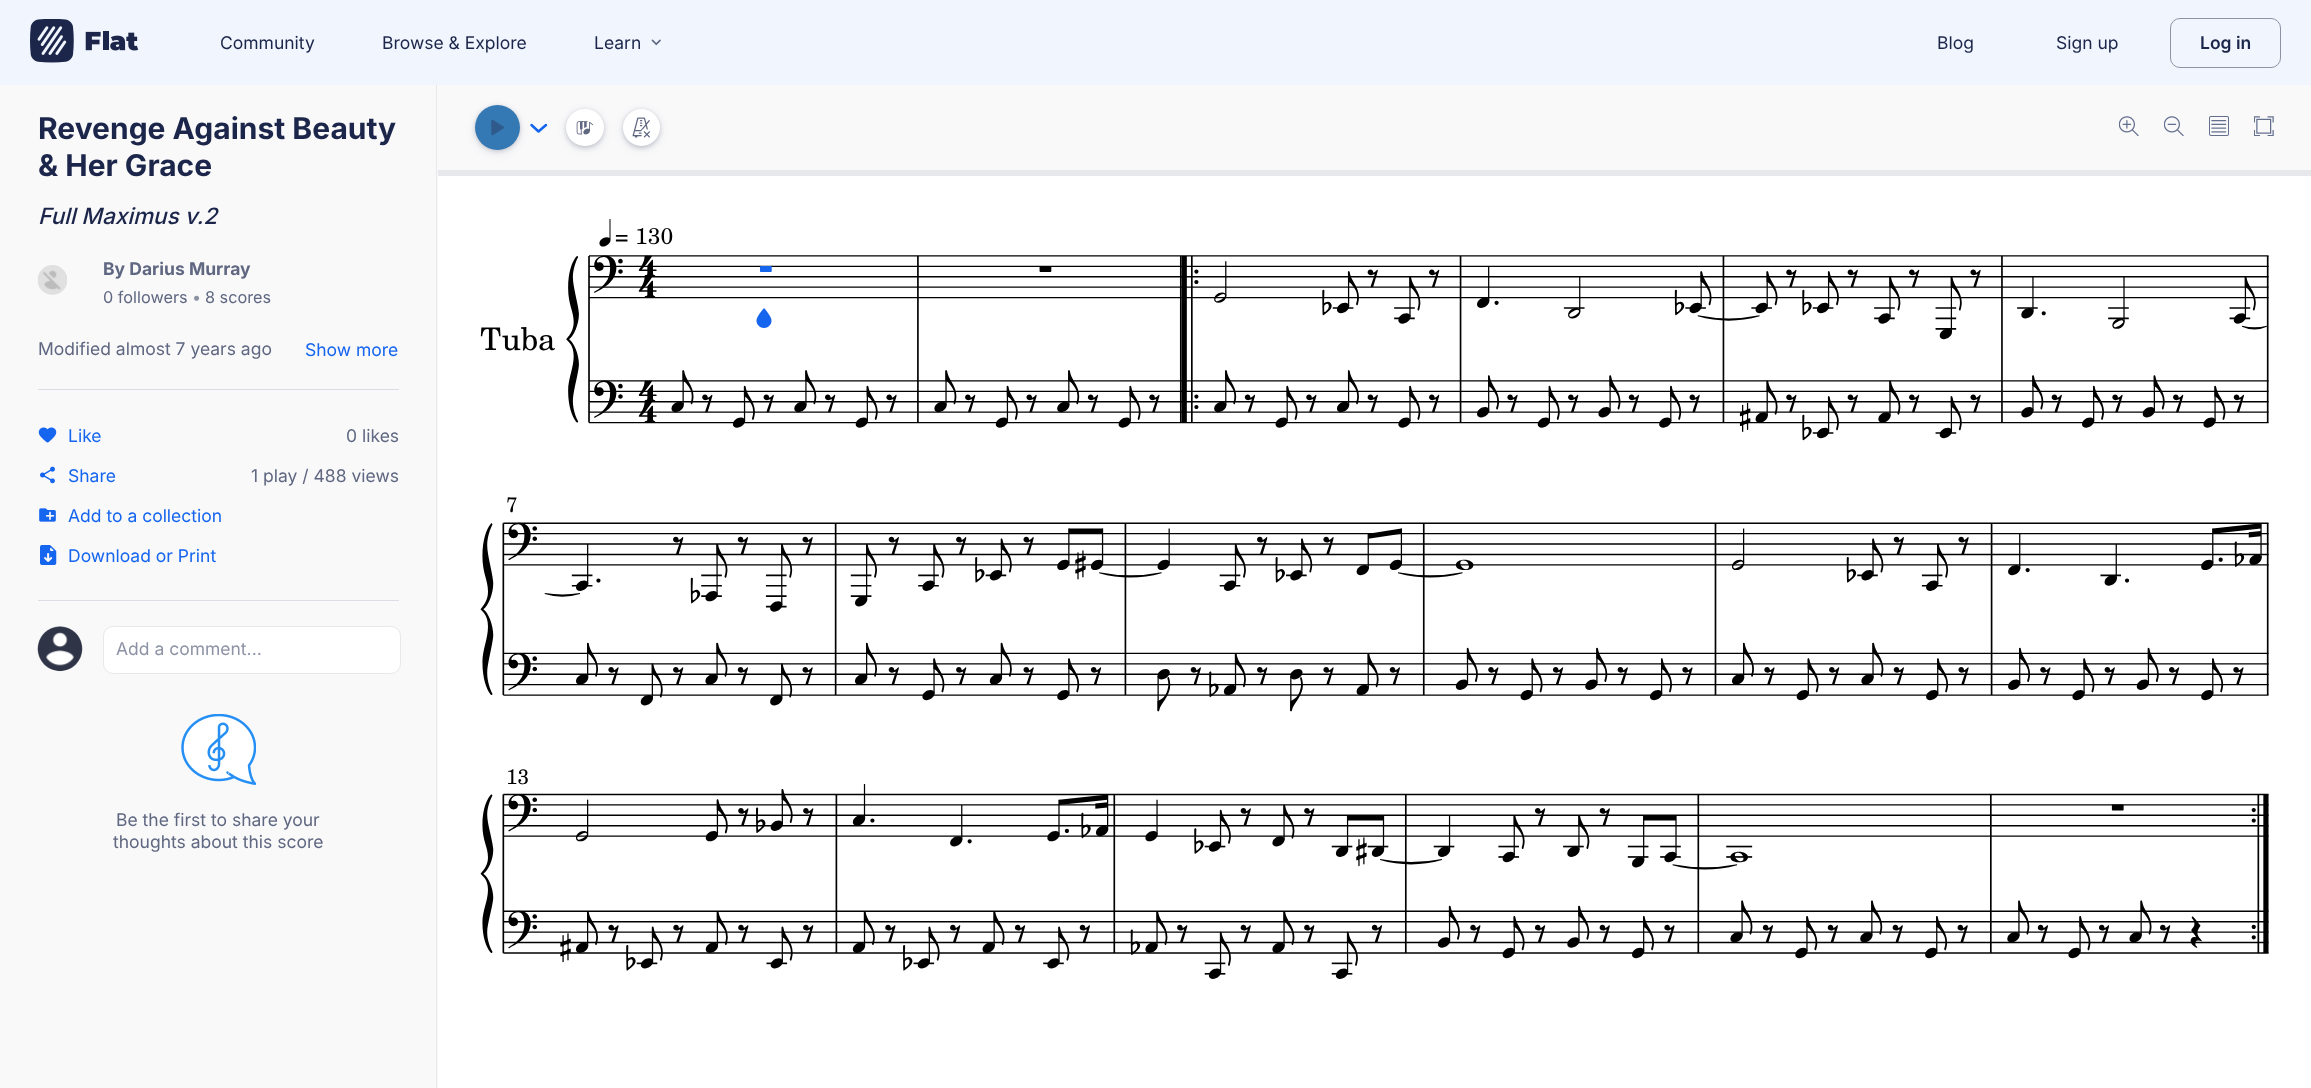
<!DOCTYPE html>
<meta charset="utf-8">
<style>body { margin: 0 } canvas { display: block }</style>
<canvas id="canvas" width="2311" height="1088"></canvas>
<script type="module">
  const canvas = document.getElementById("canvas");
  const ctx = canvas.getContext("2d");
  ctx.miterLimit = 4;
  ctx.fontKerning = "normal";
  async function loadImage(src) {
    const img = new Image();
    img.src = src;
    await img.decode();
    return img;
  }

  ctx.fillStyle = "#ffffff";
  ctx.fillRect(0, 0, 2311, 1088);
  ctx.fillStyle = "#f1f6fe";
  ctx.fillRect(0, 0, 2311, 85);
  ctx.drawImage(await loadImage("img1.png"), 30, 19, 109, 44);
  ctx.font = "17.5px Inter";
  ctx.fillStyle = "#1c264a";
  ctx.fillText("Community", 220, 49);
  ctx.fillText("Browse & Explore", 382, 49);
  ctx.fillText("Learn", 594, 49);
  ctx.drawImage(await loadImage("img2.png"), 651, 39, 10, 7);
  ctx.fillText("Blog", 1937, 49);
  ctx.fillText("Sign up", 2056, 49);
  ctx.beginPath();
  ctx.roundRect(2170.5, 18.5, 110, 49, 9.5);
  ctx.strokeStyle = "#8d93a5";
  ctx.stroke();
  ctx.font = "600 17.5px Inter";
  ctx.fillText("Log in", 2200, 49);
  ctx.fillStyle = "#f9f9fa";
  ctx.fillRect(0, 85, 438, 1003);
  ctx.fillStyle = "#e7e8ec";
  ctx.fillRect(436, 85, 1, 1003);
  ctx.font = "bold 30px Inter";
  ctx.fillStyle = "#1c264a";
  ctx.fillText("Revenge Against Beauty", 38, 139);
  ctx.fillText("& Her Grace", 38, 176);
  ctx.font = "italic 500 22.5px Inter";
  ctx.fillText("Full Maximus v.2", 38, 224);
  ctx.fillStyle = "#ffffff";
  ctx.beginPath();
  ctx.arc(53, 280, 15, 0, Math.PI * 2);
  ctx.fill();
  ctx.drawImage(await loadImage("img3.png"), 37, 265, 31, 30);
  ctx.font = "bold 17.5px Inter";
  ctx.fillStyle = "#5f6781";
  ctx.fillText("By Darius Murray", 103, 275);
  ctx.font = "16.25px Inter";
  ctx.fillText("0 followers", 103, 303);
  ctx.fillStyle = "#8d93a5";
  ctx.fillText("•", 192, 303);
  ctx.fillStyle = "#5f6781";
  ctx.fillText("8 scores", 205, 303);
  ctx.font = "17.5px Inter";
  ctx.fillText("Modified almost 7 years ago", 38, 355);
  ctx.fillStyle = "#1565ef";
  ctx.fillText("Show more", 305, 356);
  ctx.fillStyle = "#dbdee6";
  ctx.fillRect(38, 389, 361, 1);
  ctx.drawImage(await loadImage("img4.png"), 38, 427, 19, 16);
  ctx.fillStyle = "#1565ef";
  ctx.fillText("Like", 68, 442);
  ctx.fillStyle = "#5f6781";
  ctx.fillText("0 likes", 346, 442);
  ctx.drawImage(await loadImage("img5.png"), 40, 466, 15, 18);
  ctx.fillStyle = "#1565ef";
  ctx.fillText("Share", 68, 482);
  ctx.fillStyle = "#5f6781";
  ctx.fillText("1 play / 488 views", 251, 482);
  ctx.drawImage(await loadImage("img6.png"), 39, 508, 17, 14);
  ctx.fillStyle = "#1565ef";
  ctx.fillText("Add to a collection", 68, 522);
  ctx.drawImage(await loadImage("img7.png"), 40, 545, 17, 20);
  ctx.fillText("Download or Print", 68, 562);
  ctx.fillStyle = "#dbdee6";
  ctx.fillRect(38, 600, 361, 1);
  ctx.fillStyle = "#ffffff";
  ctx.beginPath();
  ctx.arc(60.5, 648.5, 22.5, 0, Math.PI * 2);
  ctx.fill();
  ctx.drawImage(await loadImage("img8.png"), 37, 626, 46, 46);
  ctx.beginPath();
  ctx.roundRect(103.5, 626.5, 297, 47, 9.5);
  ctx.fill();
  ctx.strokeStyle = "#e7e8ec";
  ctx.stroke();
  ctx.fillStyle = "#8d93a5";
  ctx.fillText("Add a comment...", 116, 655);
  ctx.drawImage(await loadImage("img9.png"), 181, 714, 75, 71);
  ctx.fillStyle = "#5f6781";
  ctx.fillText("Be the first to share your", 116, 826);
  ctx.fillText("thoughts about this score", 113, 848);
  ctx.fillStyle = "#f9f9fa";
  ctx.fillRect(438, 85, 1873, 85);
  ctx.fillStyle = "rgba(40, 48, 79, 0.2)";
  ctx.filter = "blur(2px)";
  ctx.beginPath();
  ctx.roundRect(475, 106, 45, 45, 22.5);
  ctx.fill();
  ctx.filter = "none";
  ctx.fillStyle = "rgba(40, 48, 79, 0.1)";
  ctx.filter = "blur(5px)";
  ctx.beginPath();
  ctx.roundRect(475, 108, 45, 45, 22.5);
  ctx.fill();
  ctx.filter = "none";
  ctx.fillStyle = "#3579b4";
  ctx.beginPath();
  ctx.arc(497.5, 127.5, 22.5, 0, Math.PI * 2);
  ctx.fill();
  ctx.drawImage(await loadImage("img10.png"), 491, 119, 13, 17);
  ctx.beginPath();
  ctx.moveTo(531.5, 125);
  ctx.lineTo(538.5, 131.5);
  ctx.lineTo(546, 125);
  ctx.strokeStyle = "#1565ef";
  ctx.lineWidth = 2.5;
  ctx.lineCap = "round";
  ctx.lineJoin = "round";
  ctx.stroke();
  ctx.fillStyle = "rgba(40, 48, 79, 0.2)";
  ctx.filter = "blur(2px)";
  ctx.beginPath();
  ctx.roundRect(566, 110, 38, 38, 19);
  ctx.fill();
  ctx.filter = "none";
  ctx.fillStyle = "rgba(40, 48, 79, 0.1)";
  ctx.filter = "blur(5px)";
  ctx.beginPath();
  ctx.roundRect(566, 111, 38, 38, 19);
  ctx.fill();
  ctx.filter = "none";
  ctx.fillStyle = "#ffffff";
  ctx.beginPath();
  ctx.roundRect(566, 109, 38, 37, 18.5);
  ctx.fill();
  ctx.drawImage(await loadImage("img11.png"), 576, 121, 18, 14);
  ctx.fillStyle = "rgba(40, 48, 79, 0.2)";
  ctx.filter = "blur(2px)";
  ctx.beginPath();
  ctx.roundRect(623, 110, 37, 38, 18.5);
  ctx.fill();
  ctx.filter = "none";
  ctx.fillStyle = "rgba(40, 48, 79, 0.1)";
  ctx.filter = "blur(5px)";
  ctx.beginPath();
  ctx.roundRect(623, 111, 37, 38, 18.5);
  ctx.fill();
  ctx.filter = "none";
  ctx.fillStyle = "#ffffff";
  ctx.beginPath();
  ctx.arc(641.5, 127.5, 18.5, 0, Math.PI * 2);
  ctx.fill();
  ctx.drawImage(await loadImage("img12.png"), 632, 117, 18, 21);
  ctx.drawImage(await loadImage("img13.png"), 2119, 116, 20, 20);
  ctx.drawImage(await loadImage("img14.png"), 2164, 116, 20, 20);
  ctx.drawImage(await loadImage("img15.png"), 2209, 116, 20, 20);
  ctx.drawImage(await loadImage("img16.png"), 2254, 116, 20, 20);
  ctx.fillStyle = "#e7e8ec";
  ctx.fillRect(438, 170, 1873, 6);
  ctx.drawImage(await loadImage("img17.png"), 480, 219, 1789, 222);
  ctx.drawImage(await loadImage("img18.png"), 480, 497, 1789, 215);
  ctx.drawImage(await loadImage("img19.png"), 480, 769, 1789, 210);
</script>
